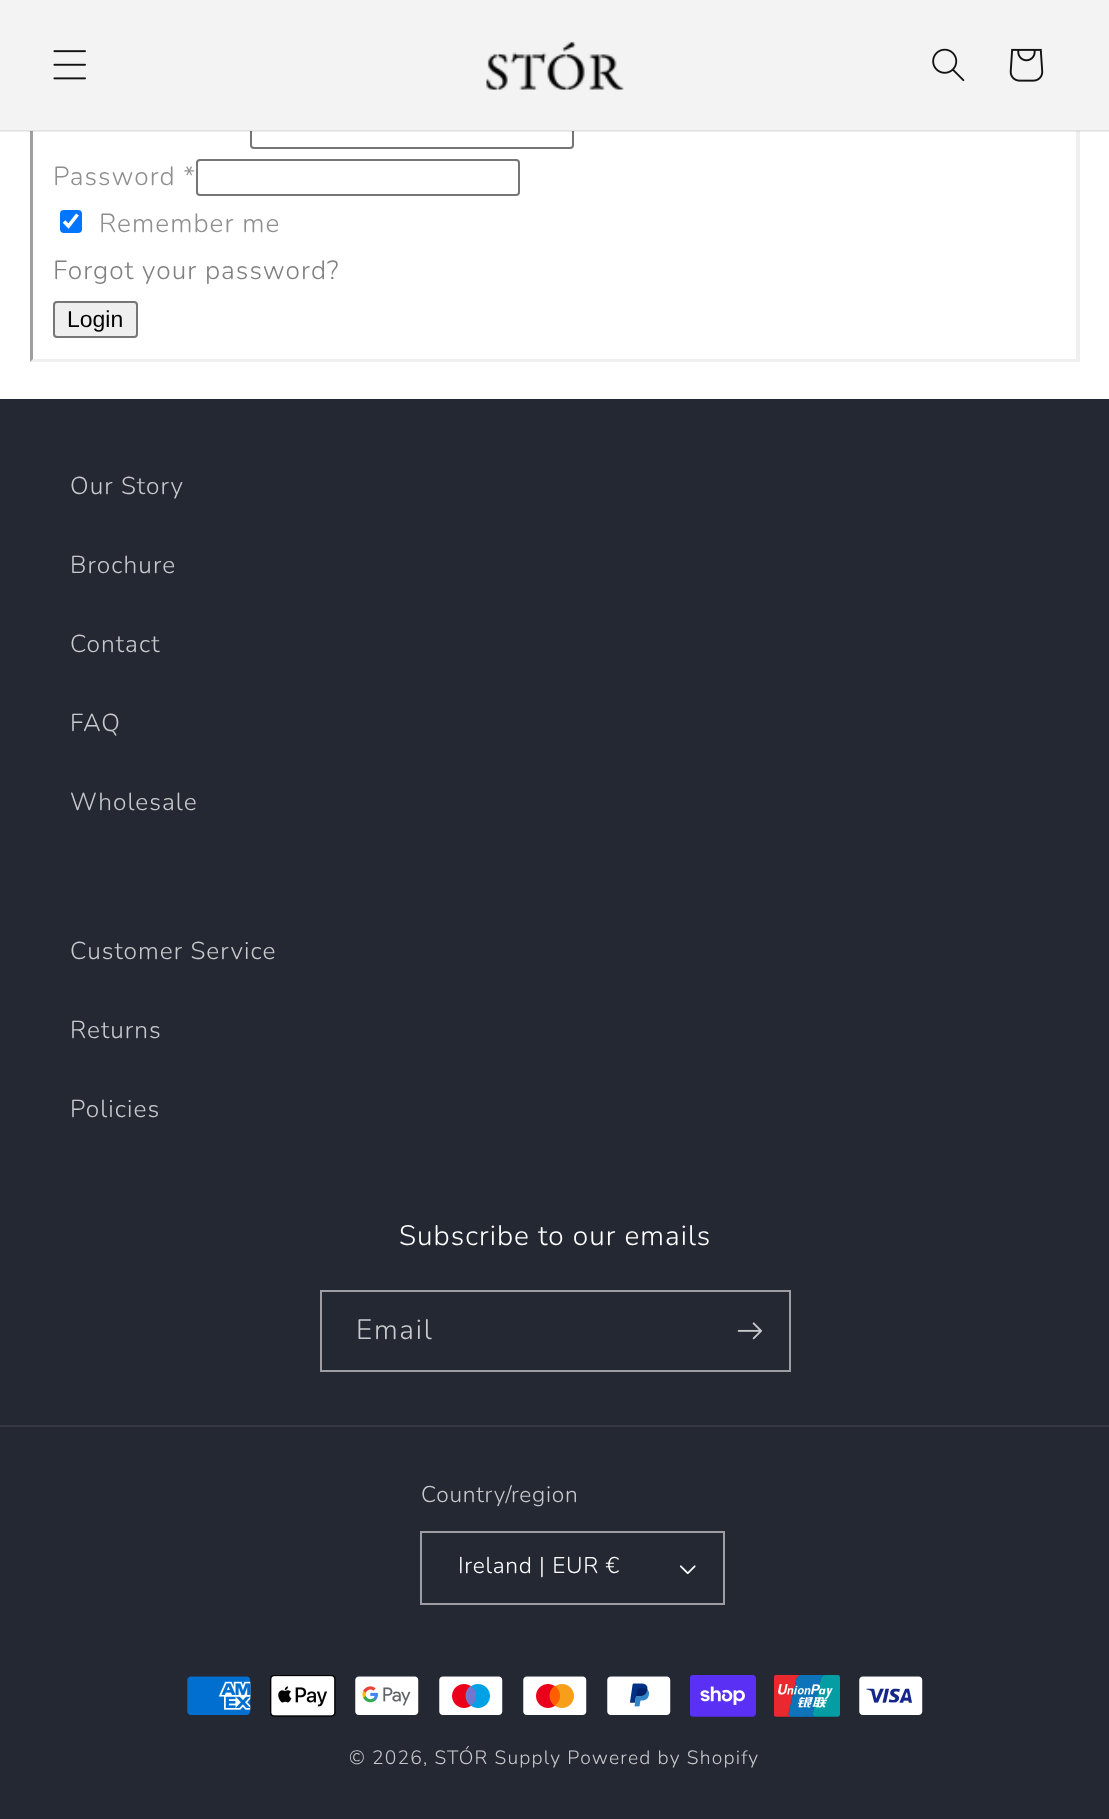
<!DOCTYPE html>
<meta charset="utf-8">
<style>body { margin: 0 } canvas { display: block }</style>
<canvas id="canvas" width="1109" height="1819"></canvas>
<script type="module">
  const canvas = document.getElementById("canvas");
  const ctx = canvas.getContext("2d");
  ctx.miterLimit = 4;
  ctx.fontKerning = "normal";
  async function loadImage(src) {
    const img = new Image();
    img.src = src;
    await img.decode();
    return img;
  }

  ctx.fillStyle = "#ffffff";
  ctx.fillRect(0, 0, 1109, 1819);
  ctx.fillStyle = "#efefef";
  ctx.beginPath();
  ctx.moveTo(1080, 93);
  ctx.lineTo(1080, 362);
  ctx.lineTo(1076, 359);
  ctx.lineTo(1076, 96);
  ctx.closePath();
  ctx.fill();
  ctx.beginPath();
  ctx.moveTo(1080, 362);
  ctx.lineTo(30, 362);
  ctx.lineTo(33, 359);
  ctx.lineTo(1076, 359);
  ctx.closePath();
  ctx.fill();
  ctx.fillStyle = "#9f9f9f";
  ctx.beginPath();
  ctx.moveTo(30, 362);
  ctx.lineTo(30, 93);
  ctx.lineTo(33, 96);
  ctx.lineTo(33, 359);
  ctx.closePath();
  ctx.fill();
  ctx.beginPath();
  ctx.roundRect(251, 113, 322, 35, 3);
  ctx.strokeStyle = "#767676";
  ctx.lineWidth = 2;
  ctx.stroke();
  ctx.fillStyle = "#f3f3f3";
  ctx.fillRect(0, 0, 1109, 131);
  ctx.fillStyle = "rgba(18, 18, 18, 0.08)";
  ctx.fillRect(0, 130, 1109, 2);
  ctx.drawImage(await loadImage("img1.png"), 53, 50, 33, 30);
  ctx.drawImage(await loadImage("img2.png"), 486, 41, 138, 50);
  ctx.drawImage(await loadImage("img3.png"), 932, 48, 33, 34);
  ctx.drawImage(await loadImage("img4.png"), 1009, 48, 35, 34);
  ctx.letterSpacing = "1.05px";
  ctx.font = "300 26.25px Nunito";
  ctx.fillStyle = "#8f8f8f";
  ctx.fillText("Password *", 53, 185);
  ctx.beginPath();
  ctx.roundRect(197, 160, 322, 35, 3);
  ctx.stroke();
  ctx.fillStyle = "#0075ff";
  ctx.beginPath();
  ctx.roundRect(60, 210, 22, 23, 4);
  ctx.fill();
  ctx.beginPath();
  ctx.moveTo(64, 221.5);
  ctx.lineTo(68.5, 226);
  ctx.lineTo(77.5, 214.5);
  ctx.strokeStyle = "#ffffff";
  ctx.lineWidth = 3.6;
  ctx.stroke();
  ctx.fillStyle = "#8f8f8f";
  ctx.fillText("Remember me", 99, 232);
  ctx.fillStyle = "#808080";
  ctx.fillText("Forgot your password?", 53, 279);
  ctx.fillStyle = "#efefef";
  ctx.beginPath();
  ctx.roundRect(54, 302, 83, 35, 3);
  ctx.fill();
  ctx.strokeStyle = "#767676";
  ctx.lineWidth = 2;
  ctx.stroke();
  ctx.letterSpacing = "0px";
  ctx.font = "23px Liberation Sans";
  ctx.fillStyle = "#000000";
  ctx.fillText("Login", 67, 327);
  ctx.fillStyle = "#242833";
  ctx.fillRect(0, 399, 1109, 1420);
  ctx.letterSpacing = "1.05px";
  ctx.font = "300 24.5px Nunito";
  ctx.fillStyle = "#c8c9cc";
  ctx.fillText("Our Story", 70, 494);
  ctx.fillText("Brochure", 70, 573);
  ctx.fillText("Contact", 70, 652);
  ctx.fillText("FAQ", 70, 731);
  ctx.fillText("Wholesale", 70, 810);
  ctx.fillText("Customer Service", 70, 959);
  ctx.fillText("Returns", 70, 1038);
  ctx.fillText("Policies", 70, 1117);
  ctx.font = "300 28px Nunito";
  ctx.fillStyle = "#ffffff";
  ctx.fillText("Subscribe to our emails", 399, 1245);
  ctx.strokeStyle = "#9c9ea3";
  ctx.strokeRect(321, 1291, 469, 80);
  ctx.letterSpacing = "1.75px";
  ctx.fillStyle = "#c8c9cc";
  ctx.fillText("Email", 356, 1339);
  ctx.drawImage(await loadImage("img5.png"), 737, 1322, 25, 18);
  ctx.fillStyle = "#363943";
  ctx.fillRect(0, 1425, 1109, 2);
  ctx.letterSpacing = "0.75px";
  ctx.font = "300 22.75px Nunito";
  ctx.fillStyle = "#c8c9cc";
  ctx.fillText("Country/region", 421, 1502);
  ctx.drawImage(await loadImage("img6.png"), 679, 1565, 17, 10);
  ctx.strokeRect(421, 1532, 303, 72);
  ctx.fillStyle = "#ffffff";
  ctx.fillText("Ireland | EUR €", 458, 1573);
  ctx.drawImage(await loadImage("img7.png"), 187, 1676, 64, 39);
  ctx.drawImage(await loadImage("img8.png"), 270, 1675, 66, 42);
  ctx.drawImage(await loadImage("img9.png"), 355, 1676, 64, 39);
  ctx.drawImage(await loadImage("img10.png"), 439, 1676, 64, 39);
  ctx.drawImage(await loadImage("img11.png"), 523, 1676, 64, 39);
  ctx.drawImage(await loadImage("img12.png"), 607, 1676, 64, 39);
  ctx.drawImage(await loadImage("img13.png"), 690, 1675, 66, 42);
  ctx.drawImage(await loadImage("img14.png"), 774, 1675, 66, 42);
  ctx.drawImage(await loadImage("img15.png"), 859, 1676, 64, 39);
  ctx.letterSpacing = "1.2px";
  ctx.font = "300 19.25px Nunito";
  ctx.fillStyle = "#c8c9cc";
  ctx.fillText("© 2026, STÓR Supply Powered by Shopify", 349, 1764);
</script>
